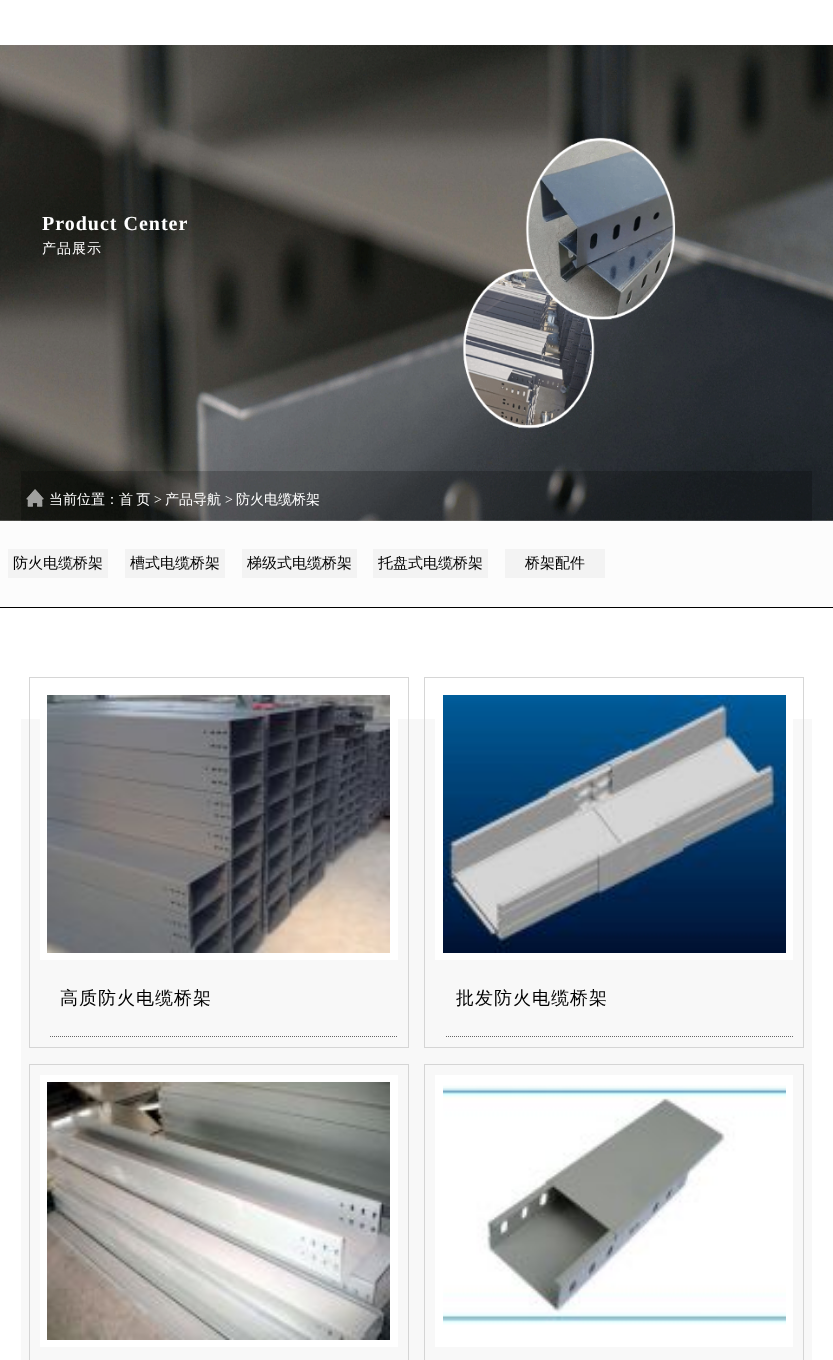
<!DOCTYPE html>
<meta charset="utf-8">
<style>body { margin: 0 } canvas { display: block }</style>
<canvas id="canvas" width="833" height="1360"></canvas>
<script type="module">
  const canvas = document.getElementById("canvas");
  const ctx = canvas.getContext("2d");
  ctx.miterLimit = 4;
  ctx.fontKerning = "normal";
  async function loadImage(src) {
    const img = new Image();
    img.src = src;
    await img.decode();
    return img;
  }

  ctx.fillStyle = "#ffffff";
  ctx.fillRect(0, 0, 833, 1360);
  ctx.drawImage(await loadImage("img1.png"), 0, 45, 833, 476);
  ctx.letterSpacing = "1px";
  ctx.font = "bold 20px Liberation Serif";
  ctx.fillText("Product Center", 42, 230);
  ctx.font = "500 14px WenQuanYi Zen Hei";
  ctx.fillText("产品展示", 42, 253);
  ctx.fillStyle = "rgba(0, 0, 0, 0.2)";
  ctx.fillRect(21, 471, 791, 50);
  ctx.drawImage(await loadImage("img2.png"), 26, 489, 18, 18);
  ctx.letterSpacing = "0px";
  ctx.fillStyle = "#ffffff";
  ctx.fillText("当前位置：", 49, 504);
  ctx.wordSpacing = "-1px";
  ctx.fillText("首 页", 119, 504);
  ctx.wordSpacing = "0px";
  ctx.font = "14px Liberation Serif";
  ctx.fillText(">", 154, 504);
  ctx.font = "500 14px WenQuanYi Zen Hei";
  ctx.fillText("产品导航", 165, 504);
  ctx.font = "14px Liberation Serif";
  ctx.fillText(">", 225, 504);
  ctx.font = "500 14px WenQuanYi Zen Hei";
  ctx.fillText("防火电缆桥架", 236, 504);
  ctx.fillStyle = "#fcfcfc";
  ctx.fillRect(0, 521, 833, 86);
  ctx.fillStyle = "#000000";
  ctx.fillRect(0, 607, 833, 1);
  ctx.fillStyle = "#f3f3f3";
  ctx.fillRect(8, 549, 100, 29);
  ctx.font = "500 15px WenQuanYi Zen Hei";
  ctx.fillStyle = "#000000";
  ctx.fillText("防火电缆桥架", 13, 568);
  ctx.fillStyle = "#f3f3f3";
  ctx.fillRect(125, 549, 100, 29);
  ctx.fillStyle = "#000000";
  ctx.fillText("槽式电缆桥架", 130, 568);
  ctx.fillStyle = "#f3f3f3";
  ctx.fillRect(242, 549, 115, 29);
  ctx.fillStyle = "#000000";
  ctx.fillText("梯级式电缆桥架", 247, 568);
  ctx.fillStyle = "#f3f3f3";
  ctx.fillRect(373, 549, 115, 29);
  ctx.fillStyle = "#000000";
  ctx.fillText("托盘式电缆桥架", 378, 568);
  ctx.fillStyle = "#f3f3f3";
  ctx.fillRect(505, 549, 100, 29);
  ctx.fillStyle = "#000000";
  ctx.fillText("桥架配件", 525, 568);
  ctx.fillStyle = "#f8f8f8";
  ctx.fillRect(21, 719, 791, 641);
  ctx.strokeStyle = "rgba(204, 204, 204, 0.8)";
  ctx.strokeRect(29.5, 677.5, 379, 370);
  ctx.fillStyle = "#ffffff";
  ctx.fillRect(40, 719, 358, 241);
  ctx.drawImage(await loadImage("img3.png"), 47, 695, 343, 258);
  ctx.save();
  ctx.beginPath();
  ctx.rect(40, 688, 358, 349);
  ctx.clip();
  ctx.beginPath();
  ctx.moveTo(50, 1036.5);
  ctx.lineTo(408, 1036.5);
  ctx.strokeStyle = "#666666";
  ctx.setLineDash([1, 1]);
  ctx.stroke();
  ctx.restore();
  ctx.letterSpacing = "1px";
  ctx.font = "500 18px WenQuanYi Zen Hei";
  ctx.fillStyle = "#000000";
  ctx.fillText("高质防火电缆桥架", 60, 1004);
  ctx.strokeRect(424.5, 677.5, 379, 370);
  ctx.fillStyle = "#ffffff";
  ctx.fillRect(435, 719, 358, 241);
  ctx.drawImage(await loadImage("img4.png"), 443, 695, 343, 258);
  ctx.save();
  ctx.beginPath();
  ctx.rect(435, 688, 358, 349);
  ctx.clip();
  ctx.beginPath();
  ctx.moveTo(446, 1036.5);
  ctx.lineTo(804, 1036.5);
  ctx.strokeStyle = "#666666";
  ctx.setLineDash([1, 1]);
  ctx.stroke();
  ctx.restore();
  ctx.fillStyle = "#000000";
  ctx.fillText("批发防火电缆桥架", 456, 1004);
  ctx.strokeStyle = "#d5d5d5";
  ctx.strokeRect(29.5, 1064.5, 379, 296);
  ctx.fillStyle = "#ffffff";
  ctx.fillRect(40, 1075, 358, 272);
  ctx.drawImage(await loadImage("img5.png"), 47, 1082, 343, 258);
  ctx.strokeRect(424.5, 1064.5, 379, 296);
  ctx.fillRect(435, 1075, 358, 272);
  ctx.drawImage(await loadImage("img6.png"), 443, 1085, 343, 240);
</script>
